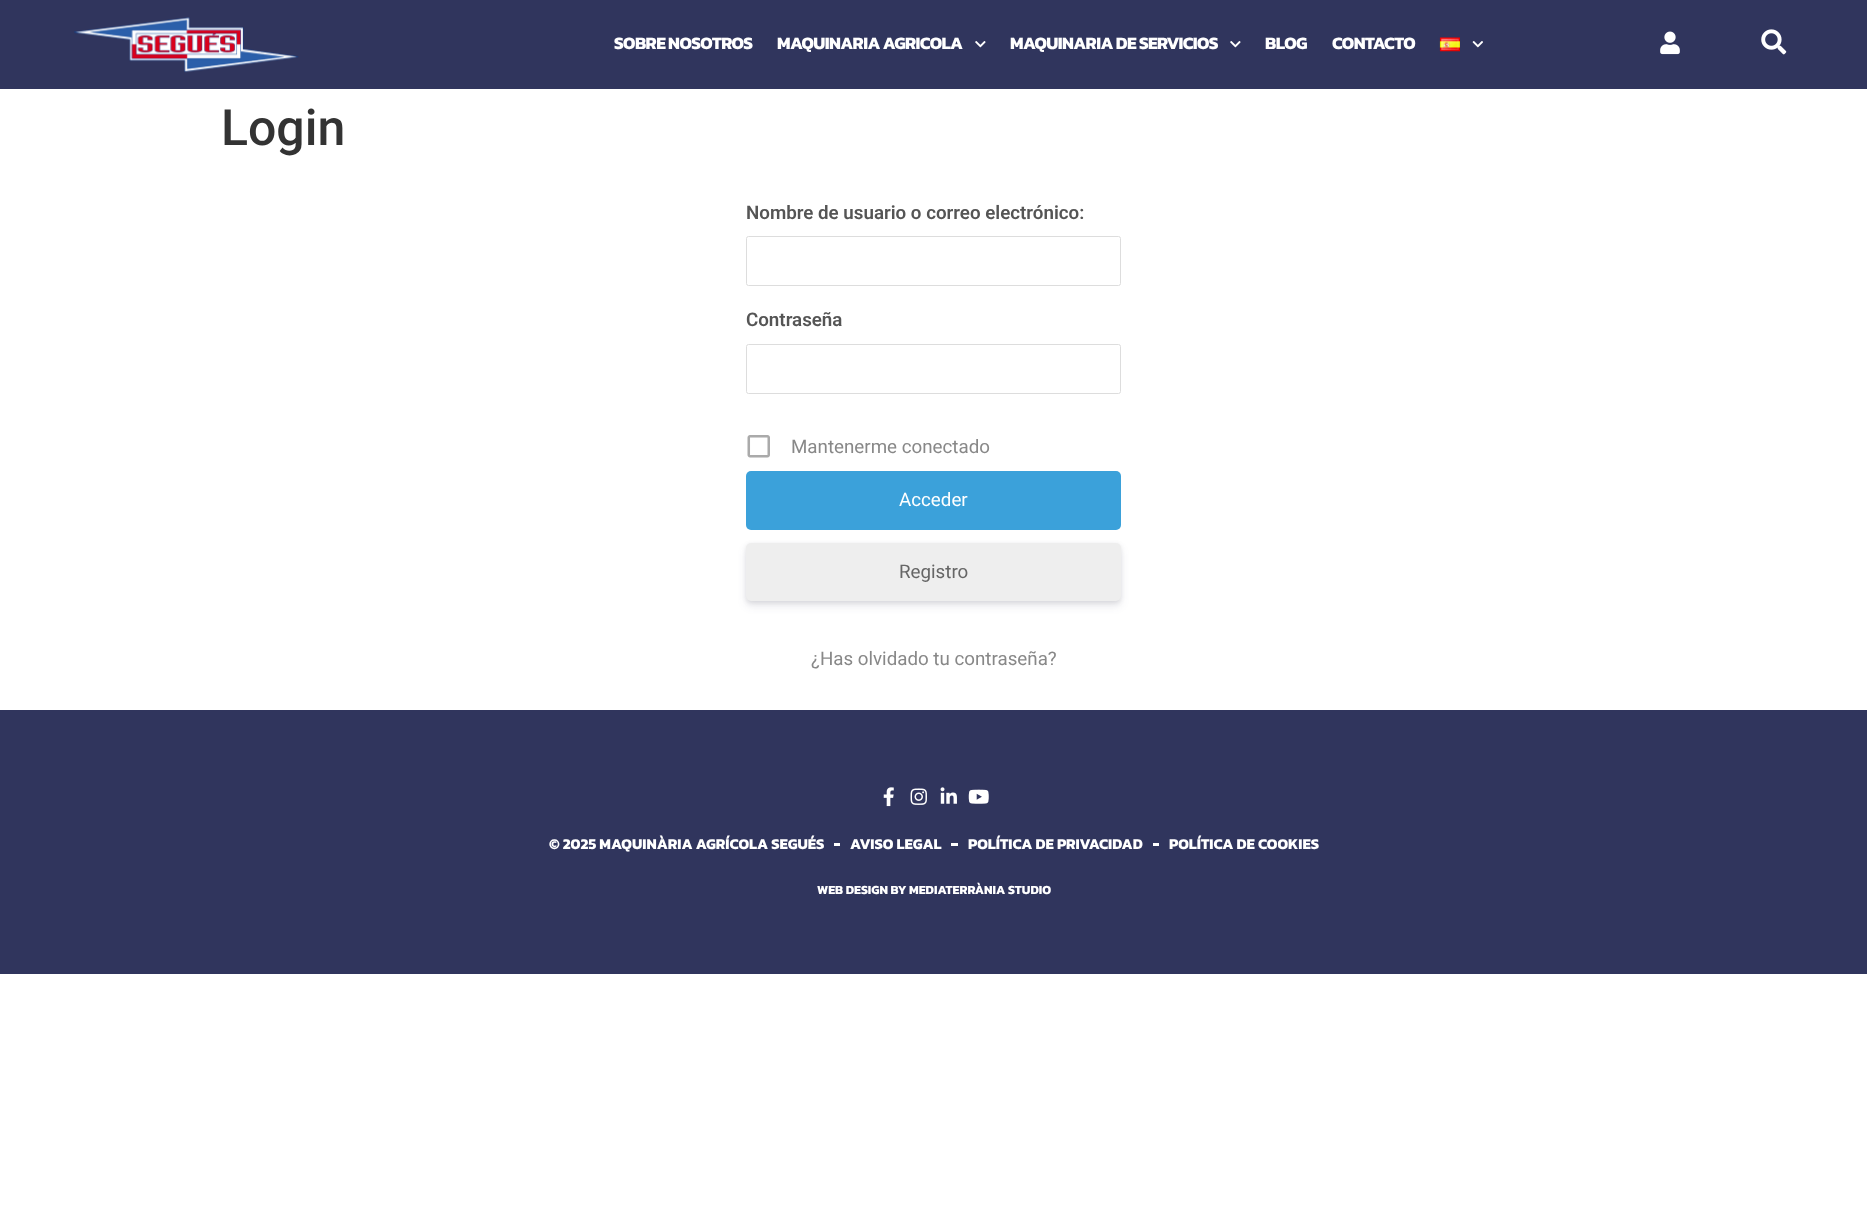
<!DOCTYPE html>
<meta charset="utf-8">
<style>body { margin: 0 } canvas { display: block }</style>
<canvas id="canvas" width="1867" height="1230"></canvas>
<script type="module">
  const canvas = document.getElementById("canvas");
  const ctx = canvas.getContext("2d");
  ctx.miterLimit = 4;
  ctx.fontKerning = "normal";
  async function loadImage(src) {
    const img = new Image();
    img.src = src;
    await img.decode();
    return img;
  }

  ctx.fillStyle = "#ffffff";
  ctx.fillRect(0, 0, 1867, 1230);
  ctx.fillStyle = "#30355d";
  ctx.fillRect(0, 0, 1867, 89);
  ctx.drawImage(await loadImage("img1.png"), 74, 17, 225, 56);
  ctx.letterSpacing = "-0.6px";
  ctx.font = "bold 17.5px Kanit";
  ctx.fillStyle = "#ffffff";
  ctx.fillText("SOBRE NOSOTROS", 614, 49);
  ctx.fillText("MAQUINARIA AGRICOLA", 777, 49);
  ctx.drawImage(await loadImage("img2.png"), 975, 41, 11, 7);
  ctx.fillText("MAQUINARIA DE SERVICIOS", 1010, 49);
  ctx.drawImage(await loadImage("img2.png"), 1230, 41, 11, 7);
  ctx.fillText("BLOG", 1265, 49);
  ctx.fillText("CONTACTO", 1332, 49);
  ctx.drawImage(await loadImage("img3.png"), 1439, 37, 21, 15);
  ctx.drawImage(await loadImage("img4.png"), 1472, 41, 11, 7);
  ctx.drawImage(await loadImage("img5.png"), 1660, 31, 20, 24);
  ctx.drawImage(await loadImage("img6.png"), 1761, 29, 26, 26);
  ctx.letterSpacing = "0px";
  ctx.font = "500 50px Roboto";
  ctx.fillStyle = "#333333";
  ctx.fillText("Login", 221, 145);
  ctx.font = "600 18.75px Roboto";
  ctx.fillStyle = "#555555";
  ctx.fillText("Nombre de usuario o correo electrónico:", 746, 219);
  ctx.beginPath();
  ctx.roundRect(746.5, 236.5, 374, 49, 2);
  ctx.strokeStyle = "#dddddd";
  ctx.stroke();
  ctx.fillText("Contraseña", 746, 326);
  ctx.beginPath();
  ctx.roundRect(746.5, 344.5, 374, 49, 2);
  ctx.stroke();
  ctx.drawImage(await loadImage("img7.png"), 747, 435, 23, 23);
  ctx.font = "18.75px Roboto";
  ctx.fillStyle = "#888888";
  ctx.fillText("Mantenerme conectado", 791, 453);
  ctx.fillStyle = "#3ba1da";
  ctx.beginPath();
  ctx.roundRect(746, 471, 375, 59, 5);
  ctx.fill();
  ctx.fillStyle = "#ffffff";
  ctx.fillText("Acceder", 899, 506);
  ctx.fillStyle = "rgba(0, 0, 0, 0.08)";
  ctx.filter = "blur(2px)";
  ctx.beginPath();
  ctx.roundRect(746, 544, 375, 59, 5);
  ctx.fill();
  ctx.filter = "none";
  ctx.fillStyle = "rgba(50, 50, 93, 0.11)";
  ctx.filter = "blur(4px)";
  ctx.beginPath();
  ctx.roundRect(746, 548, 375, 58, 5);
  ctx.fill();
  ctx.filter = "none";
  ctx.fillStyle = "#eeeeee";
  ctx.beginPath();
  ctx.roundRect(746, 543, 375, 58, 5);
  ctx.fill();
  ctx.fillStyle = "#666666";
  ctx.fillText("Registro", 899, 578);
  ctx.fillStyle = "#888888";
  ctx.fillText("¿Has olvidado tu contraseña?", 811, 665);
  ctx.fillStyle = "#30355d";
  ctx.fillRect(0, 710, 1867, 264);
  ctx.drawImage(await loadImage("img8.png"), 883, 787, 11, 20);
  ctx.drawImage(await loadImage("img9.png"), 910, 788, 17, 17);
  ctx.drawImage(await loadImage("img10.png"), 940, 787, 17, 17);
  ctx.drawImage(await loadImage("img11.png"), 968, 789, 21, 15);
  ctx.font = "bold 15px Kanit";
  ctx.fillStyle = "#ffffff";
  ctx.fillText("© 2025 MAQUINÀRIA AGRÍCOLA SEGUÉS", 549, 849);
  ctx.fillRect(834, 843, 6, 3);
  ctx.fillText("AVISO LEGAL", 850, 849);
  ctx.fillRect(951, 843, 7, 3);
  ctx.fillText("POLÍTICA DE PRIVACIDAD", 968, 849);
  ctx.fillRect(1153, 843, 6, 3);
  ctx.fillText("POLÍTICA DE COOKIES", 1169, 849);
  ctx.font = "bold 12.5px Kanit";
  ctx.fillText("WEB DESIGN BY MEDIATERRÀNIA STUDIO", 817, 894);
</script>
